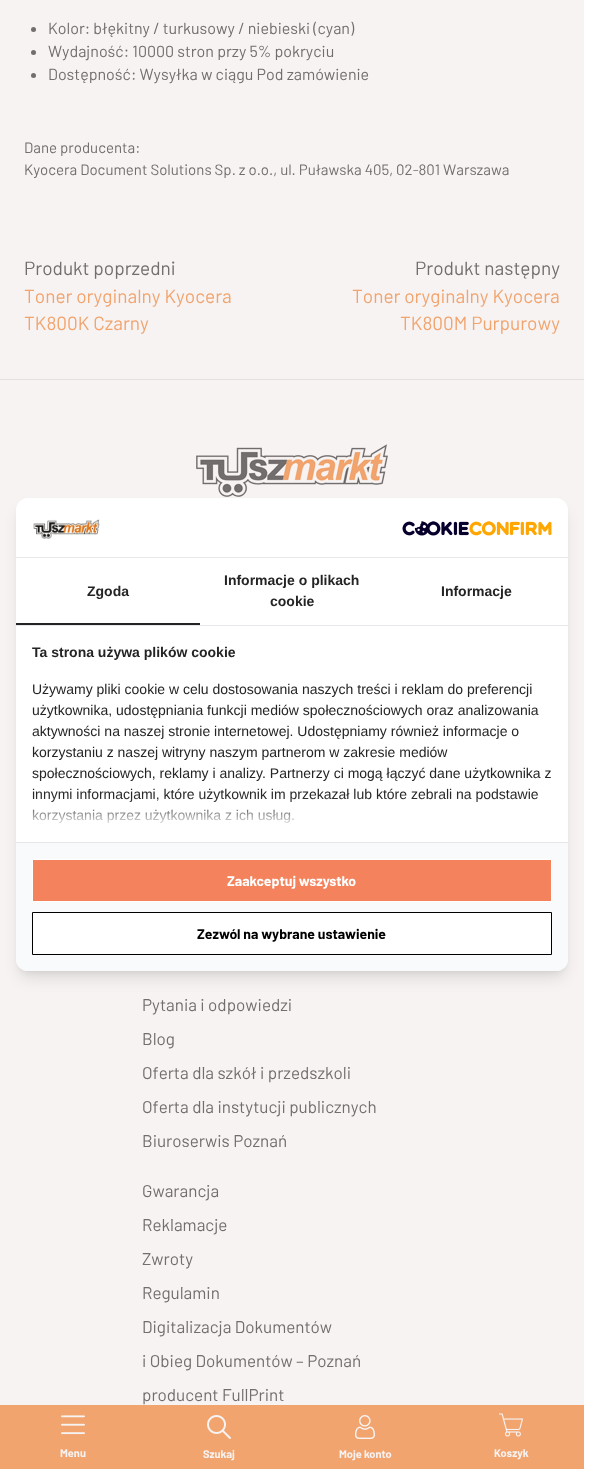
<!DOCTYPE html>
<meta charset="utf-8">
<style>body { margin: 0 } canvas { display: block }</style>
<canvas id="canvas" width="599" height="1469"></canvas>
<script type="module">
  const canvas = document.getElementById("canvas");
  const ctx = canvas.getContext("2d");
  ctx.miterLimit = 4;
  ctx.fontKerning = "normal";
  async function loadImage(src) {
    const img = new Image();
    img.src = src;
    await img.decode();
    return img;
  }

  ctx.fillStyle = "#ffffff";
  ctx.fillRect(0, 0, 599, 1469);
  ctx.fillStyle = "#f7f3f3";
  ctx.fillRect(0, 0, 584, 1405);
  ctx.fillStyle = "#736e6e";
  ctx.beginPath();
  ctx.arc(33.5, 29.5, 2.5, 0, Math.PI * 2);
  ctx.fill();
  ctx.font = "16px Barlow";
  ctx.fillText("Kolor: błękitny / turkusowy / niebieski (cyan)", 48, 34);
  ctx.beginPath();
  ctx.arc(33.5, 52.5, 2.5, 0, Math.PI * 2);
  ctx.fill();
  ctx.fillText("Wydajność: 10000 stron przy 5% pokryciu", 48, 57);
  ctx.beginPath();
  ctx.arc(33.5, 75.5, 2.5, 0, Math.PI * 2);
  ctx.fill();
  ctx.fillText("Dostępność: Wysyłka w ciągu Pod zamówienie", 48, 80);
  ctx.font = "15px Barlow";
  ctx.fillText("Dane producenta:", 24, 153);
  ctx.fillText("Kyocera Document Solutions Sp. z o.o., ul. Puławska 405, 02-801 Warszawa", 24, 175);
  ctx.font = "19px Barlow";
  ctx.fillText("Produkt poprzedni", 24, 275);
  ctx.fillStyle = "#f1a46e";
  ctx.fillText("Toner oryginalny Kyocera", 24, 303);
  ctx.fillText("TK800K Czarny", 24, 330);
  ctx.fillStyle = "#736e6e";
  ctx.fillText("Produkt następny", 415, 275);
  ctx.fillStyle = "#f1a46e";
  ctx.fillText("Toner oryginalny Kyocera", 352, 303);
  ctx.fillText("TK800M Purpurowy", 400, 330);
  ctx.drawImage(await loadImage("img3.png"), 196, 444, 192, 53);
  ctx.fillStyle = "rgba(0, 0, 0, 0.1)";
  ctx.filter = "blur(3px)";
  ctx.beginPath();
  ctx.roundRect(20, 506, 544, 465, 8);
  ctx.fill();
  ctx.filter = "none";
  ctx.filter = "blur(7.5px)";
  ctx.beginPath();
  ctx.roundRect(19, 511, 546, 467, 9);
  ctx.fill();
  ctx.filter = "none";
  ctx.fillStyle = "#ffffff";
  ctx.beginPath();
  ctx.roundRect(16, 498, 552, 473, 12);
  ctx.fill();
  ctx.fillStyle = "#e5e7eb";
  ctx.fillRect(16, 557, 552, 1);
  ctx.drawImage(await loadImage("img1.png"), 33, 519, 67, 20);
  ctx.drawImage(await loadImage("img2.png"), 402, 521, 150, 15);
  ctx.fillRect(16, 625, 552, 1);
  ctx.fillStyle = "#242424";
  ctx.fillRect(16, 623, 184, 2);
  ctx.font = "bold 14px Liberation Sans";
  ctx.fillText("Zgoda", 87, 596);
  ctx.fillText("Informacje o plikach", 224, 585);
  ctx.fillText("cookie", 270, 606);
  ctx.fillText("Informacje", 441, 596);
  ctx.fillText("Ta strona używa plików cookie", 32, 657);
  ctx.font = "14px Liberation Sans";
  ctx.fillText("Używamy pliki cookie w celu dostosowania naszych treści i reklam do preferencji", 32, 694);
  ctx.fillText("użytkownika, udostępniania funkcji mediów społecznościowych oraz analizowania", 32, 715);
  ctx.fillText("aktywności na naszej stronie internetowej. Udostępniamy również informacje o", 32, 736);
  ctx.fillText("korzystaniu z naszej witryny naszym partnerom w zakresie mediów", 32, 757);
  ctx.fillText("społecznościowych, reklamy i analizy. Partnerzy ci mogą łączyć dane użytkownika z", 32, 778);
  ctx.fillText("innymi informacjami, które użytkownik im przekazał lub które zebrali na podstawie", 32, 799);
  ctx.fillText("korzystania przez użytkownika z ich usług.", 32, 820);
  ctx.save();
  ctx.beginPath();
  ctx.roundRect(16, 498, 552, 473, 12);
  ctx.clip();
  ctx.fillStyle = "#ffffff";
  ctx.filter = "blur(10px)";
  ctx.beginPath();
  ctx.rect(8, 814, 568, 145);
  ctx.fill();
  ctx.filter = "none";
  ctx.restore();
  ctx.fillStyle = "#f9fafb";
  ctx.beginPath();
  ctx.roundRect(16, 842, 552, 129, [0, 0, 12, 12]);
  ctx.fill();
  ctx.fillStyle = "#e5e7eb";
  ctx.fillRect(16, 842, 552, 1);
  ctx.fillStyle = "#f4825c";
  ctx.beginPath();
  ctx.rect(32.5, 859.5, 519, 42);
  ctx.fill();
  ctx.strokeStyle = "#ffffff";
  ctx.stroke();
  ctx.font = "bold 14px Barlow";
  ctx.fillStyle = "#ffffff";
  ctx.fillText("Zaakceptuj wszystko", 227, 886);
  ctx.beginPath();
  ctx.rect(32.5, 912.5, 519, 42);
  ctx.fill();
  ctx.strokeStyle = "#000000";
  ctx.stroke();
  ctx.fillStyle = "#000000";
  ctx.fillText("Zezwól na wybrane ustawienie", 197, 939);
  ctx.fillStyle = "#e5e1e1";
  ctx.fillRect(0, 379, 584, 1);
  ctx.font = "17px Barlow";
  ctx.fillStyle = "#736e6e";
  ctx.fillText("Pytania i odpowiedzi", 142, 1011);
  ctx.fillText("Blog", 142, 1045);
  ctx.fillText("Oferta dla szkół i przedszkoli", 142, 1079);
  ctx.fillText("Oferta dla instytucji publicznych", 142, 1113);
  ctx.fillText("Biuroserwis Poznań", 142, 1147);
  ctx.fillText("Gwarancja", 142, 1197);
  ctx.fillText("Reklamacje", 142, 1231);
  ctx.fillText("Zwroty", 142, 1265);
  ctx.fillText("Regulamin", 142, 1299);
  ctx.fillText("Digitalizacja Dokumentów", 142, 1333);
  ctx.fillText("i Obieg Dokumentów – Poznań", 142, 1367);
  ctx.fillText("producent FullPrint", 142, 1401);
  ctx.fillStyle = "#f1a46e";
  ctx.fillRect(0, 1405, 584, 64);
  ctx.drawImage(await loadImage("img4.png"), 61, 1415, 24, 20);
  ctx.font = "bold 11px Barlow";
  ctx.fillStyle = "#f7f3f3";
  ctx.fillText("Menu", 60, 1457);
  ctx.drawImage(await loadImage("img5.png"), 207, 1415, 24, 24);
  ctx.fillText("Szukaj", 203, 1458);
  ctx.drawImage(await loadImage("img6.png"), 355, 1415, 20, 24);
  ctx.fillText("Moje konto", 339, 1458);
  ctx.drawImage(await loadImage("img7.png"), 499, 1413, 24, 24);
  ctx.fillText("Koszyk", 494, 1457);
</script>
